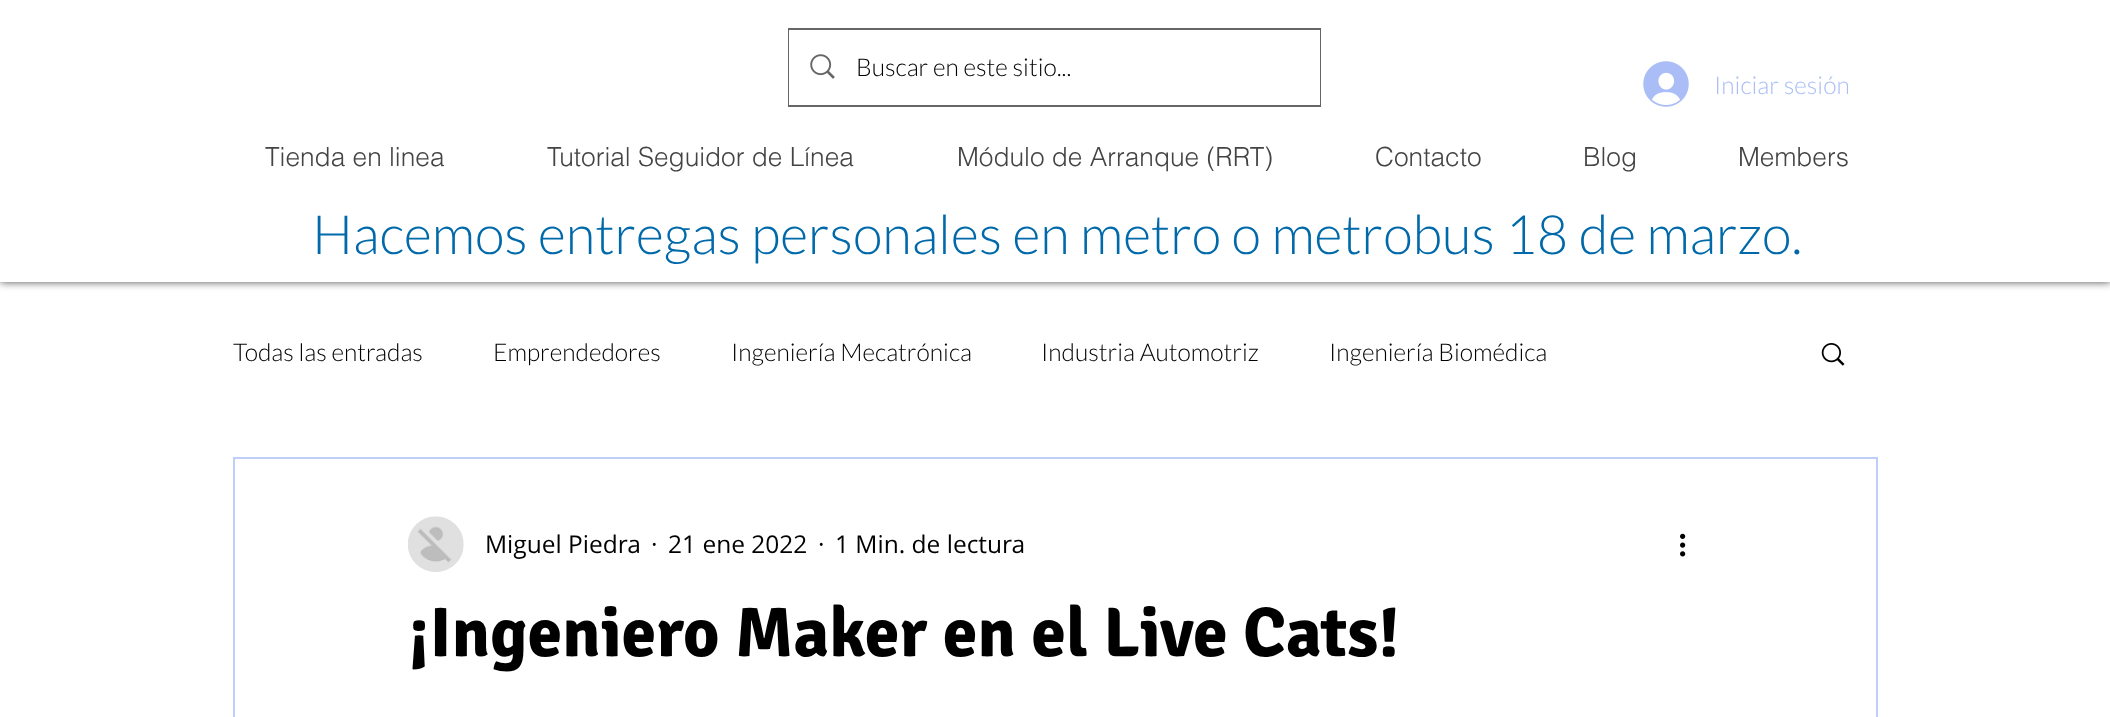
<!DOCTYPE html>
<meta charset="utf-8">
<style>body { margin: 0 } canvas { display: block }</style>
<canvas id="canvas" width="2110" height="717"></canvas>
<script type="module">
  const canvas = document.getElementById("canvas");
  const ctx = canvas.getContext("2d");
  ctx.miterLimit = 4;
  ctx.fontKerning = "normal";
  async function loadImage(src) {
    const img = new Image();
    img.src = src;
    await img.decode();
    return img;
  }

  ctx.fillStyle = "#ffffff";
  ctx.fillRect(0, 0, 2110, 717);
  ctx.fillStyle = "rgba(0, 0, 0, 0.7)";
  ctx.filter = "blur(4.5px)";
  ctx.beginPath();
  ctx.rect(0, -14, 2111, 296);
  ctx.fill();
  ctx.filter = "none";
  ctx.fillStyle = "#ffffff";
  ctx.fillRect(0, 0, 2110, 282);
  ctx.strokeStyle = "#666666";
  ctx.lineWidth = 2;
  ctx.strokeRect(789, 29, 531, 77);
  ctx.fillRect(789, 30, 531, 75);
  ctx.drawImage(await loadImage("img1.png"), 810, 54, 25, 25);
  ctx.font = "300 24.5px Lato";
  ctx.fillStyle = "#000000";
  ctx.fillText("Buscar en este sitio...", 856, 76);
  ctx.drawImage(await loadImage("img2.png"), 1643, 61, 46, 46);
  ctx.fillStyle = "#aabdf6";
  ctx.fillText("Iniciar sesión", 1714, 94);
  ctx.font = "300 26.25px helvetica";
  ctx.fillStyle = "#444444";
  ctx.fillText("Tienda en linea", 265, 166);
  ctx.fillText("Tutorial Seguidor de Línea", 547, 166);
  ctx.fillText("Módulo de Arranque (RRT)", 957, 166);
  ctx.fillText("Contacto", 1375, 166);
  ctx.fillText("Blog", 1583, 166);
  ctx.fillText("Members", 1738, 166);
  ctx.font = "300 54.25px Lato";
  ctx.fillStyle = "#0069aa";
  ctx.fillText("Hacemos entregas personales en metro o metrobus 18 de marzo.", 312, 254);
  ctx.font = "300 24.5px Lato";
  ctx.fillStyle = "#000000";
  ctx.fillText("Todas las entradas", 233, 361);
  ctx.fillText("Emprendedores", 493, 361);
  ctx.fillText("Ingeniería Mecatrónica", 731, 361);
  ctx.fillText("Industria Automotriz", 1041, 361);
  ctx.fillText("Ingeniería Biomédica", 1329, 361);
  ctx.drawImage(await loadImage("img3.png"), 1821, 343, 24, 23);
  ctx.strokeStyle = "#bfcef8";
  ctx.strokeRect(234, 458, 1643, 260);
  ctx.drawImage(await loadImage("img4.png"), 408, 516, 56, 56);
  ctx.font = "24.5px Open Sans";
  ctx.fillText("Miguel Piedra", 485, 553);
  ctx.fillText("·", 651, 553);
  ctx.fillText("21 ene 2022", 668, 553);
  ctx.fillText("·", 818, 553);
  ctx.fillText("1 Min. de lectura", 835, 553);
  ctx.drawImage(await loadImage("img5.png"), 1680, 533, 6, 24);
  ctx.font = "bold 70px Signika";
  ctx.fillText("¡Ingeniero Maker en el Live Cats!", 408, 656);
</script>
